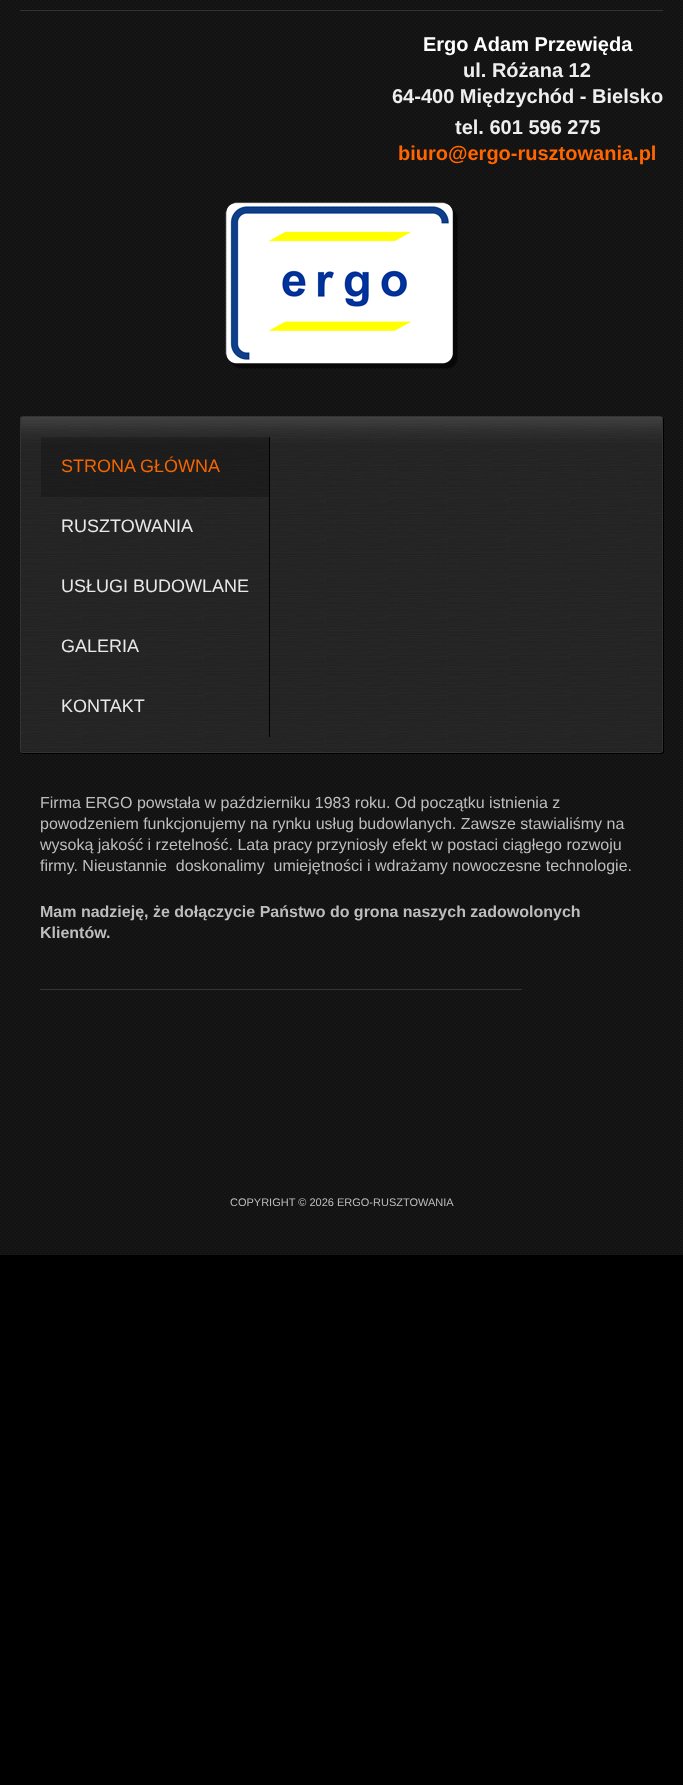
<!DOCTYPE html>
<meta charset="utf-8">
<style>body { margin: 0 } canvas { display: block }</style>
<canvas id="canvas" width="683" height="1785"></canvas>
<script type="module">
  const canvas = document.getElementById("canvas");
  const ctx = canvas.getContext("2d");
  ctx.miterLimit = 4;
  ctx.fontKerning = "normal";
  async function loadImage(src) {
    const img = new Image();
    img.src = src;
    await img.decode();
    return img;
  }

  ctx.fillStyle = "#000000";
  ctx.fillRect(0, 0, 683, 1785);
  ctx.drawImage(await loadImage("img1.png"), 0, 0, 683, 1255);
  ctx.fillStyle = "#333333";
  ctx.fillRect(20, 10, 643, 1);
  ctx.font = "bold 20px Liberation Sans";
  ctx.fillStyle = "#ffffff";
  ctx.fillText("Ergo Adam Przewięda", 423, 51);
  ctx.fillStyle = "#eeeeee";
  ctx.fillText("ul. Różana 12", 463, 77);
  ctx.fillText("64-400 Międzychód - Bielsko", 392, 103);
  ctx.fillText("tel. 601 596 275", 455, 134);
  ctx.fillStyle = "#ff6600";
  ctx.fillText("biuro@ergo-rusztowania.pl", 398, 160);
  ctx.drawImage(await loadImage("img2.png"), 225, 202, 233, 167);
  ctx.fillStyle = "#000000";
  ctx.filter = "blur(0.5px)";
  ctx.beginPath();
  ctx.roundRect(21, 417, 643, 337, 3);
  ctx.fill();
  ctx.filter = "none";
  ctx.drawImage(await loadImage("img3.png"), 20, 416, 643, 337);
  ctx.beginPath();
  ctx.roundRect(20.5, 416.5, 642, 336, 2.5);
  ctx.strokeStyle = "#333333";
  ctx.stroke();
  ctx.fillStyle = "rgba(0, 0, 0, 0.2)";
  ctx.fillRect(41, 437, 228, 60);
  ctx.fillStyle = "#000000";
  ctx.fillRect(269, 437, 1, 300);
  ctx.font = "18px Liberation Sans";
  ctx.fillStyle = "#f36600";
  ctx.fillText("STRONA GŁÓWNA", 61, 472);
  ctx.fillStyle = "#e8e8e8";
  ctx.fillText("RUSZTOWANIA", 61, 532);
  ctx.fillText("USŁUGI BUDOWLANE", 61, 592);
  ctx.fillText("GALERIA", 61, 652);
  ctx.fillText("KONTAKT", 61, 712);
  ctx.font = "16px Liberation Sans";
  ctx.fillStyle = "#bdbdbd";
  ctx.fillText("Firma ERGO powstała w październiku 1983 roku. Od początku istnienia z", 40, 808);
  ctx.fillText("powodzeniem funkcjonujemy na rynku usług budowlanych. Zawsze stawialiśmy na", 40, 829);
  ctx.fillText("wysoką jakość i rzetelność. Lata pracy przyniosły efekt w postaci ciągłego rozwoju", 40, 850);
  ctx.fillText("firmy. Nieustannie  doskonalimy  umiejętności i wdrażamy nowoczesne technologie.", 40, 871);
  ctx.font = "bold 16px Liberation Sans";
  ctx.fillText("Mam nadzieję, że dołączycie Państwo do grona naszych zadowolonych", 40, 917);
  ctx.fillText("Klientów.", 40, 938);
  ctx.fillStyle = "#333333";
  ctx.fillRect(40, 989, 482, 1);
  ctx.font = "11px Liberation Sans";
  ctx.fillStyle = "#bdbdbd";
  ctx.fillText("COPYRIGHT © 2026 ERGO-RUSZTOWANIA", 230, 1206);
</script>
